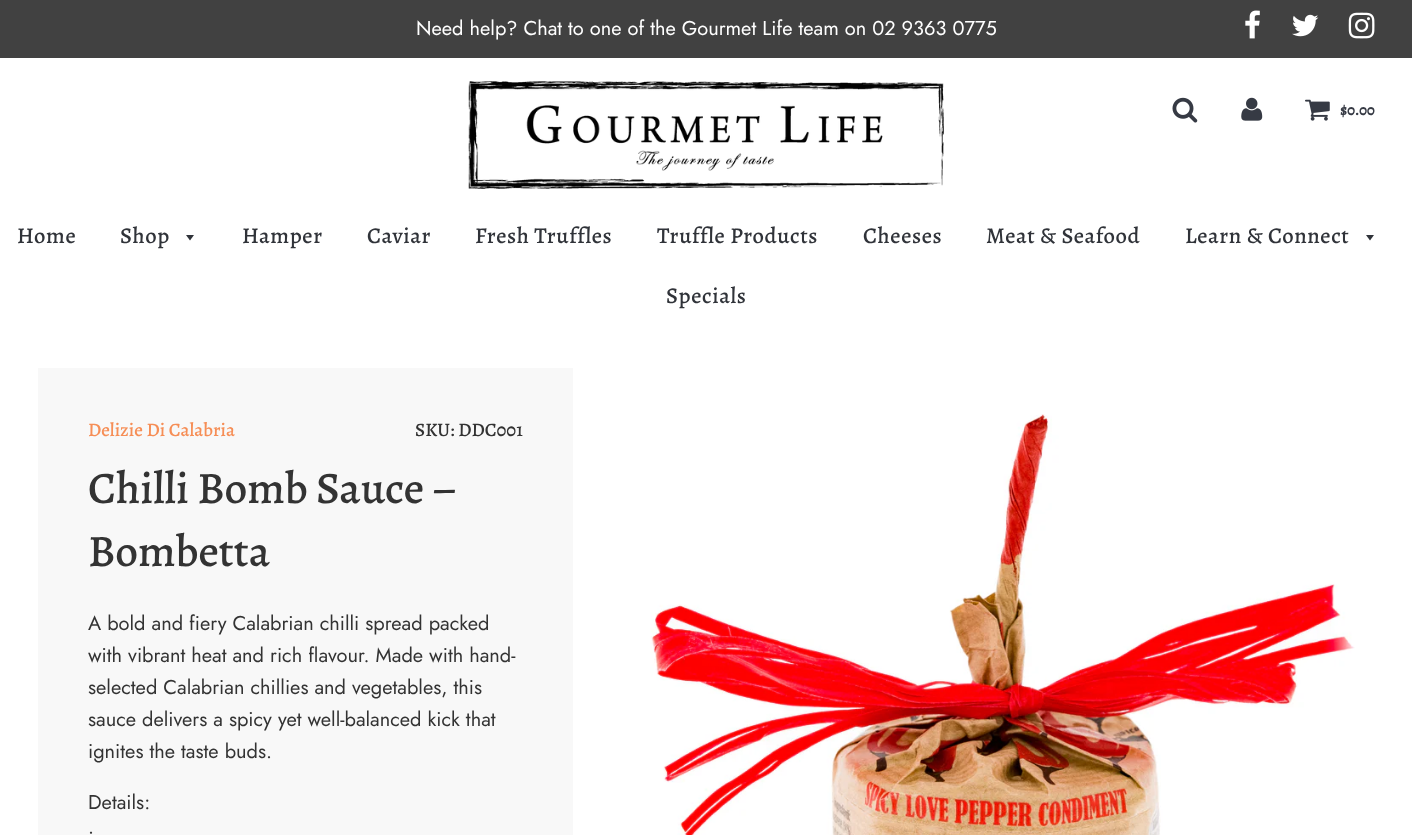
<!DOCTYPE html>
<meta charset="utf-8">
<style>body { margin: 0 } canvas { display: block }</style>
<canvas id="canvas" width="1412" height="835"></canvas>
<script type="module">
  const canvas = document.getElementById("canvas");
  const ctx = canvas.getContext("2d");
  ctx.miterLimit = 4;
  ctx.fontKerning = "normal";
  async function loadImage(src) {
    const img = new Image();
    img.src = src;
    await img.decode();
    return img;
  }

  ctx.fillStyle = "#ffffff";
  ctx.fillRect(0, 0, 1412, 835);
  ctx.fillStyle = "#414141";
  ctx.fillRect(0, 0, 1412, 58);
  ctx.font = "20px Jost";
  ctx.fillStyle = "#ffffff";
  ctx.fillText("Need help? Chat to one of the Gourmet Life team on 02 9363 0775", 416, 35);
  ctx.drawImage(await loadImage("img1.png"), 1245, 10, 15, 29);
  ctx.drawImage(await loadImage("img2.png"), 1292, 14, 27, 23);
  ctx.drawImage(await loadImage("img3.png"), 1348, 12, 27, 27);
  ctx.drawImage(await loadImage("img4.png"), 468, 81, 476, 108);
  ctx.drawImage(await loadImage("img5.png"), 1172, 97, 26, 26);
  ctx.drawImage(await loadImage("img6.png"), 1241, 97, 22, 24);
  ctx.drawImage(await loadImage("img7.png"), 1305, 99, 25, 22);
  ctx.font = "bold 15px Alegreya";
  ctx.fillStyle = "#363a44";
  ctx.fillText("$0.00", 1340, 115);
  ctx.letterSpacing = "0.6px";
  ctx.font = "500 22.5px Alegreya";
  ctx.fillStyle = "#303339";
  ctx.fillText("Home", 17, 243);
  ctx.fillText("Shop", 120, 243);
  ctx.beginPath();
  ctx.moveTo(186, 235);
  ctx.lineTo(190, 240.5);
  ctx.lineTo(194, 235);
  ctx.closePath();
  ctx.fill();
  ctx.fillText("Hamper", 242, 243);
  ctx.fillText("Caviar", 367, 243);
  ctx.fillText("Fresh Truffles", 475, 243);
  ctx.fillText("Truffle Products", 657, 243);
  ctx.fillText("Cheeses", 863, 243);
  ctx.fillText("Meat & Seafood", 986, 243);
  ctx.fillText("Learn & Connect", 1185, 243);
  ctx.beginPath();
  ctx.moveTo(1366, 235);
  ctx.lineTo(1370, 240.5);
  ctx.lineTo(1374, 235);
  ctx.closePath();
  ctx.fill();
  ctx.fillText("Specials", 666, 303);
  ctx.fillStyle = "#f8f8f8";
  ctx.fillRect(38, 368, 535, 467);
  ctx.letterSpacing = "0px";
  ctx.font = "500 19px Alegreya";
  ctx.fillStyle = "#f68e56";
  ctx.fillText("Delizie Di Calabria", 88, 436);
  ctx.fillStyle = "#333333";
  ctx.fillText("SKU: DDC001", 415, 436);
  ctx.font = "500 45px Alegreya";
  ctx.fillText("Chilli Bomb Sauce –", 88, 503);
  ctx.fillText("Bombetta", 88, 566);
  ctx.font = "20px Jost";
  ctx.fillText("A bold and fiery Calabrian chilli spread packed", 88, 630);
  ctx.fillText("with vibrant heat and rich flavour. Made with hand-", 88, 662);
  ctx.fillText("selected Calabrian chillies and vegetables, this", 88, 694);
  ctx.fillText("sauce delivers a spicy yet well-balanced kick that", 88, 726);
  ctx.fillText("ignites the taste buds.", 88, 758);
  ctx.fillText("Details:", 88, 809);
  ctx.fillText("•", 88, 841);
  ctx.drawImage(await loadImage("img8.png"), 650, 414, 705, 421);
</script>
